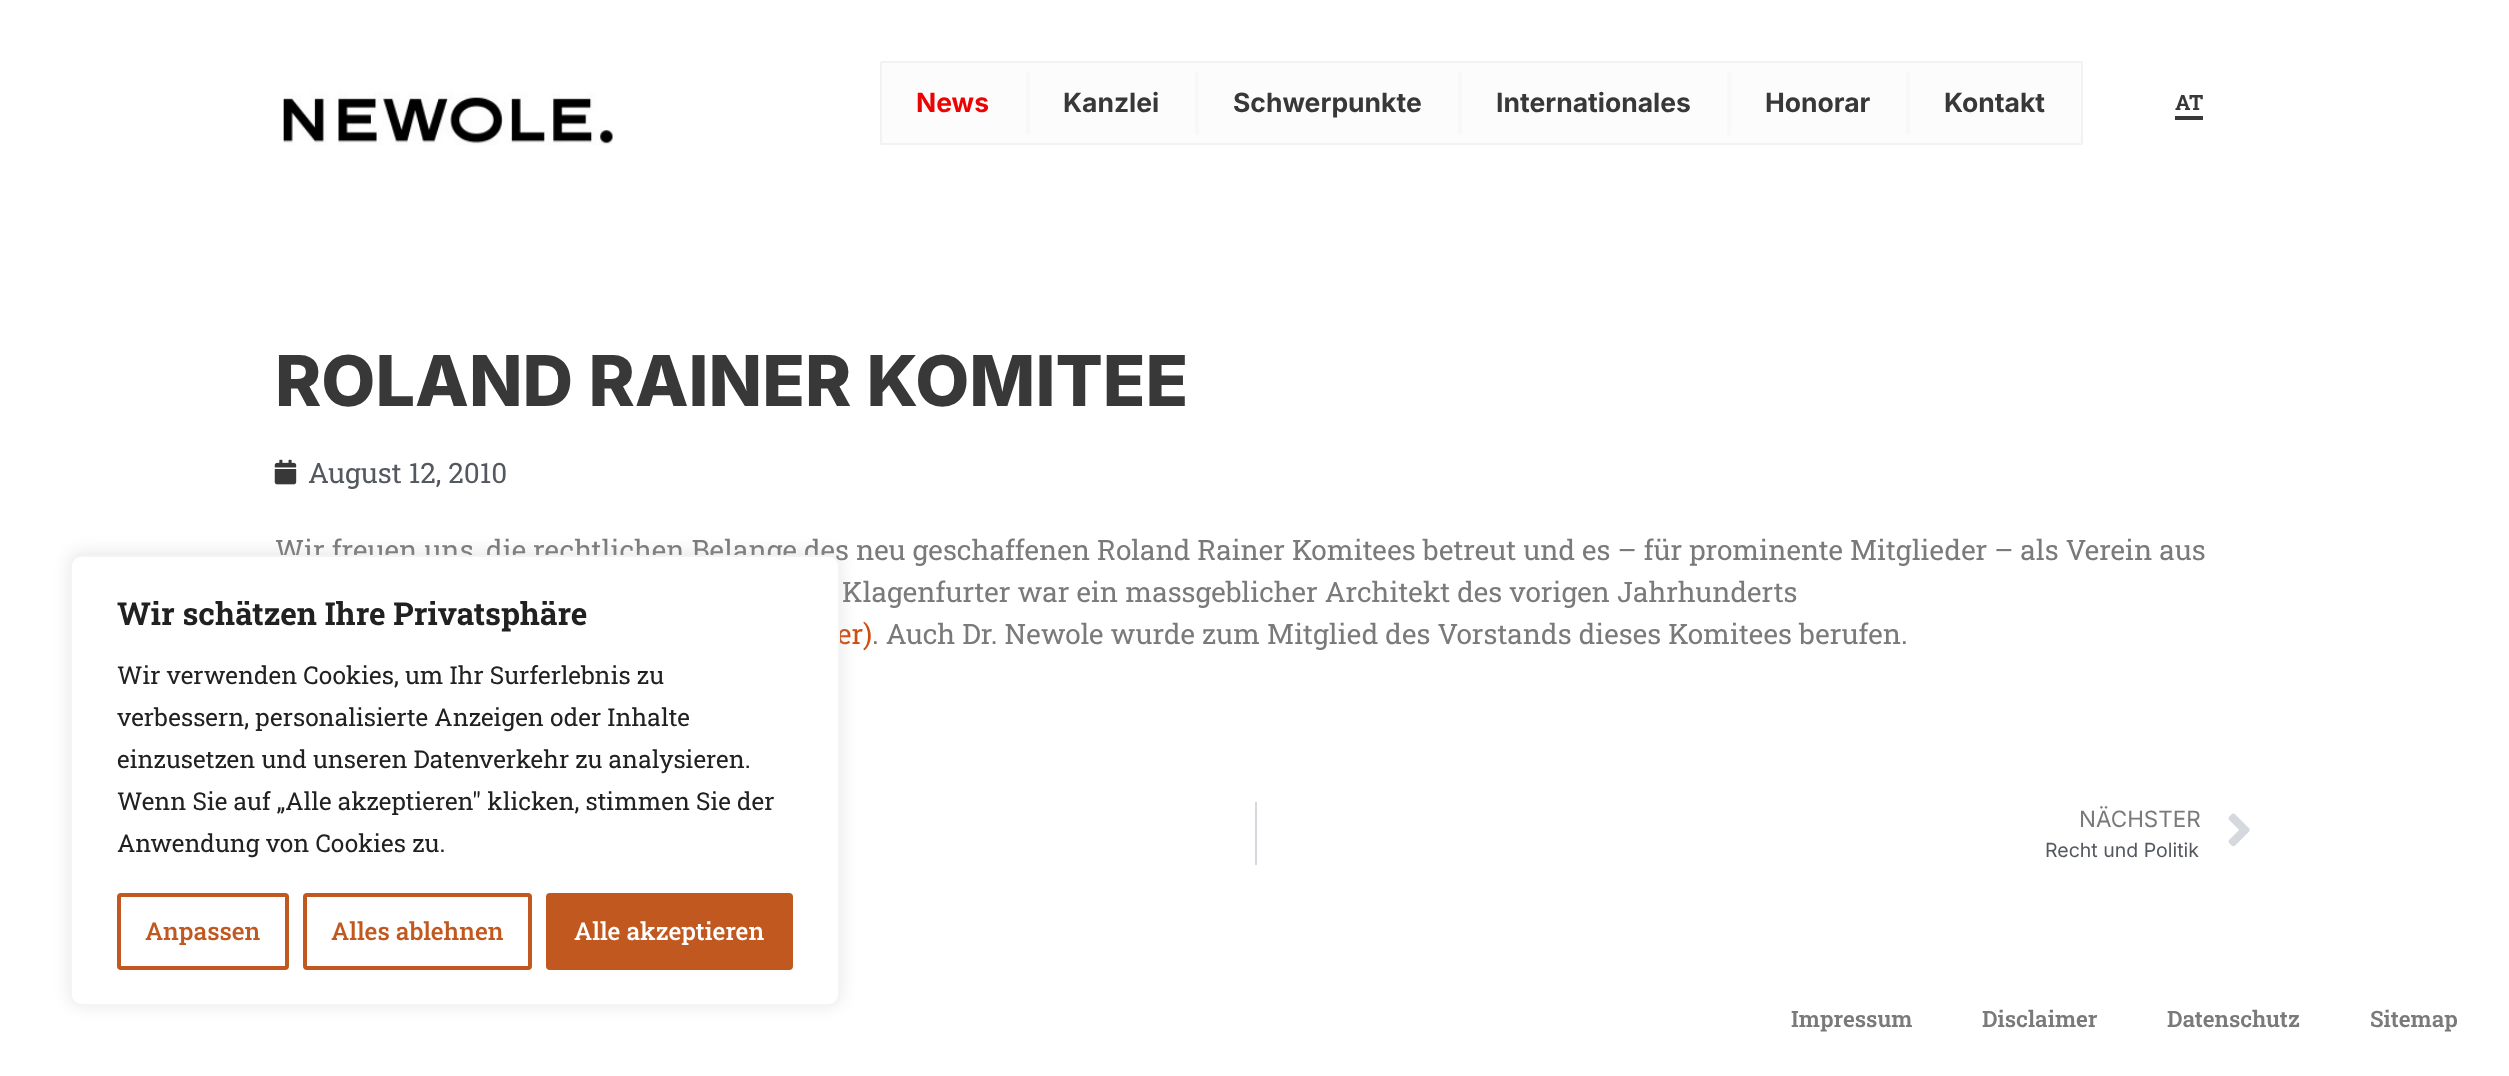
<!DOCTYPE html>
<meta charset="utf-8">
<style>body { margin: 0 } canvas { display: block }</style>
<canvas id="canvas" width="2509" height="1076"></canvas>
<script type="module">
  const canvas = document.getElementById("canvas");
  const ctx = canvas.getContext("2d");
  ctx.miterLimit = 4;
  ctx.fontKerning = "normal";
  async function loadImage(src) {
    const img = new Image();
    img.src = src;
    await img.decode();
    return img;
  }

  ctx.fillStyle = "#ffffff";
  ctx.fillRect(0, 0, 2509, 1076);
  ctx.drawImage(await loadImage("img1.png"), 283, 92, 330, 53);
  ctx.fillStyle = "#fcfcfc";
  ctx.beginPath();
  ctx.roundRect(881, 62, 1201, 82, 1);
  ctx.fill();
  ctx.strokeStyle = "#f2f2f2";
  ctx.lineWidth = 2;
  ctx.stroke();
  ctx.font = "bold 26.5px Inter";
  ctx.fillStyle = "#ec0404";
  ctx.fillText("News", 916, 112);
  ctx.fillStyle = "#f8f8f8";
  ctx.fillRect(1026, 72, 4, 63);
  ctx.fillStyle = "#383838";
  ctx.fillText("Kanzlei", 1063, 112);
  ctx.fillStyle = "#f8f8f8";
  ctx.fillRect(1195, 72, 4, 63);
  ctx.fillStyle = "#383838";
  ctx.fillText("Schwerpunkte", 1233, 112);
  ctx.fillStyle = "#f8f8f8";
  ctx.fillRect(1458, 72, 4, 63);
  ctx.fillStyle = "#383838";
  ctx.fillText("Internationales", 1496, 112);
  ctx.fillStyle = "#f8f8f8";
  ctx.fillRect(1727, 72, 4, 63);
  ctx.fillStyle = "#383838";
  ctx.fillText("Honorar", 1765, 112);
  ctx.fillStyle = "#f8f8f8";
  ctx.fillRect(1906, 72, 4, 63);
  ctx.fillStyle = "#383838";
  ctx.fillText("Kontakt", 1944, 112);
  ctx.font = "bold 21px Roboto Slab";
  ctx.fillText("AT", 2175, 110);
  ctx.fillRect(2175, 116, 28, 4);
  ctx.font = "800 70px Inter";
  ctx.fillText("ROLAND RAINER KOMITEE", 275, 406);
  ctx.drawImage(await loadImage("img2.png"), 274, 459, 23, 26);
  ctx.font = "28px Roboto Slab";
  ctx.fillStyle = "#54595f";
  ctx.fillText("August 12, 2010", 308, 483);
  ctx.fillStyle = "#7a7a7a";
  ctx.fillText("Wir freuen uns, die rechtlichen Belange des neu geschaffenen Roland Rainer Komitees betreut und es – für prominente Mitglieder – als Verein aus", 275, 560);
  ctx.fillText("Klagenfurter war ein massgeblicher Architekt des vorigen Jahrhunderts", 842, 602);
  ctx.fillStyle = "#cf4d10";
  ctx.fillText("er)", 837, 644);
  ctx.fillStyle = "#7a7a7a";
  ctx.fillText(". Auch Dr. Newole wurde zum Mitglied des Vorstands dieses Komitees berufen.", 872, 644);
  ctx.fillStyle = "#d5d8dc";
  ctx.fillRect(1255, 802, 2, 63);
  ctx.font = "22.5px Inter";
  ctx.fillStyle = "#7a7a7a";
  ctx.fillText("NÄCHSTER", 2079, 827);
  ctx.font = "19.5px Inter";
  ctx.fillStyle = "#54595f";
  ctx.fillText("Recht und Politik", 2045, 857);
  ctx.drawImage(await loadImage("img3.png"), 2228, 813, 22, 34);
  ctx.fillStyle = "rgba(172, 171, 171, 0.3)";
  ctx.filter = "blur(9px)";
  ctx.beginPath();
  ctx.roundRect(70, 553, 770, 452, 11);
  ctx.fill();
  ctx.filter = "none";
  ctx.fillStyle = "#ffffff";
  ctx.beginPath();
  ctx.roundRect(71, 556, 768, 449, 10);
  ctx.fill();
  ctx.strokeStyle = "#f4f4f4";
  ctx.stroke();
  ctx.font = "bold 31.5px Roboto Slab";
  ctx.fillStyle = "#212121";
  ctx.fillText("Wir schätzen Ihre Privatsphäre", 117, 625);
  ctx.font = "24.5px Roboto Slab";
  ctx.fillText("Wir verwenden Cookies, um Ihr Surferlebnis zu", 117, 684);
  ctx.fillText("verbessern, personalisierte Anzeigen oder Inhalte", 117, 726);
  ctx.fillText("einzusetzen und unseren Datenverkehr zu analysieren.", 117, 768);
  ctx.fillText("Wenn Sie auf „Alle akzeptieren\" klicken, stimmen Sie der", 117, 810);
  ctx.fillText("Anwendung von Cookies zu.", 117, 852);
  ctx.beginPath();
  ctx.roundRect(119, 895, 168, 73, 2);
  ctx.strokeStyle = "#c1581f";
  ctx.lineWidth = 4;
  ctx.stroke();
  ctx.font = "500 24.5px Roboto Slab";
  ctx.fillStyle = "#c1581f";
  ctx.fillText("Anpassen", 145, 940);
  ctx.beginPath();
  ctx.roundRect(305, 895, 225, 73, 2);
  ctx.stroke();
  ctx.fillText("Alles ablehnen", 331, 940);
  ctx.beginPath();
  ctx.roundRect(548, 895, 243, 73, 2);
  ctx.fill();
  ctx.stroke();
  ctx.fillStyle = "#ffffff";
  ctx.fillText("Alle akzeptieren", 574, 940);
  ctx.font = "600 22.5px Roboto Slab";
  ctx.fillStyle = "#7a7a7a";
  ctx.fillText("Impressum", 1791, 1027);
  ctx.fillText("Disclaimer", 1982, 1027);
  ctx.fillText("Datenschutz", 2167, 1027);
  ctx.fillText("Sitemap", 2370, 1027);
</script>
